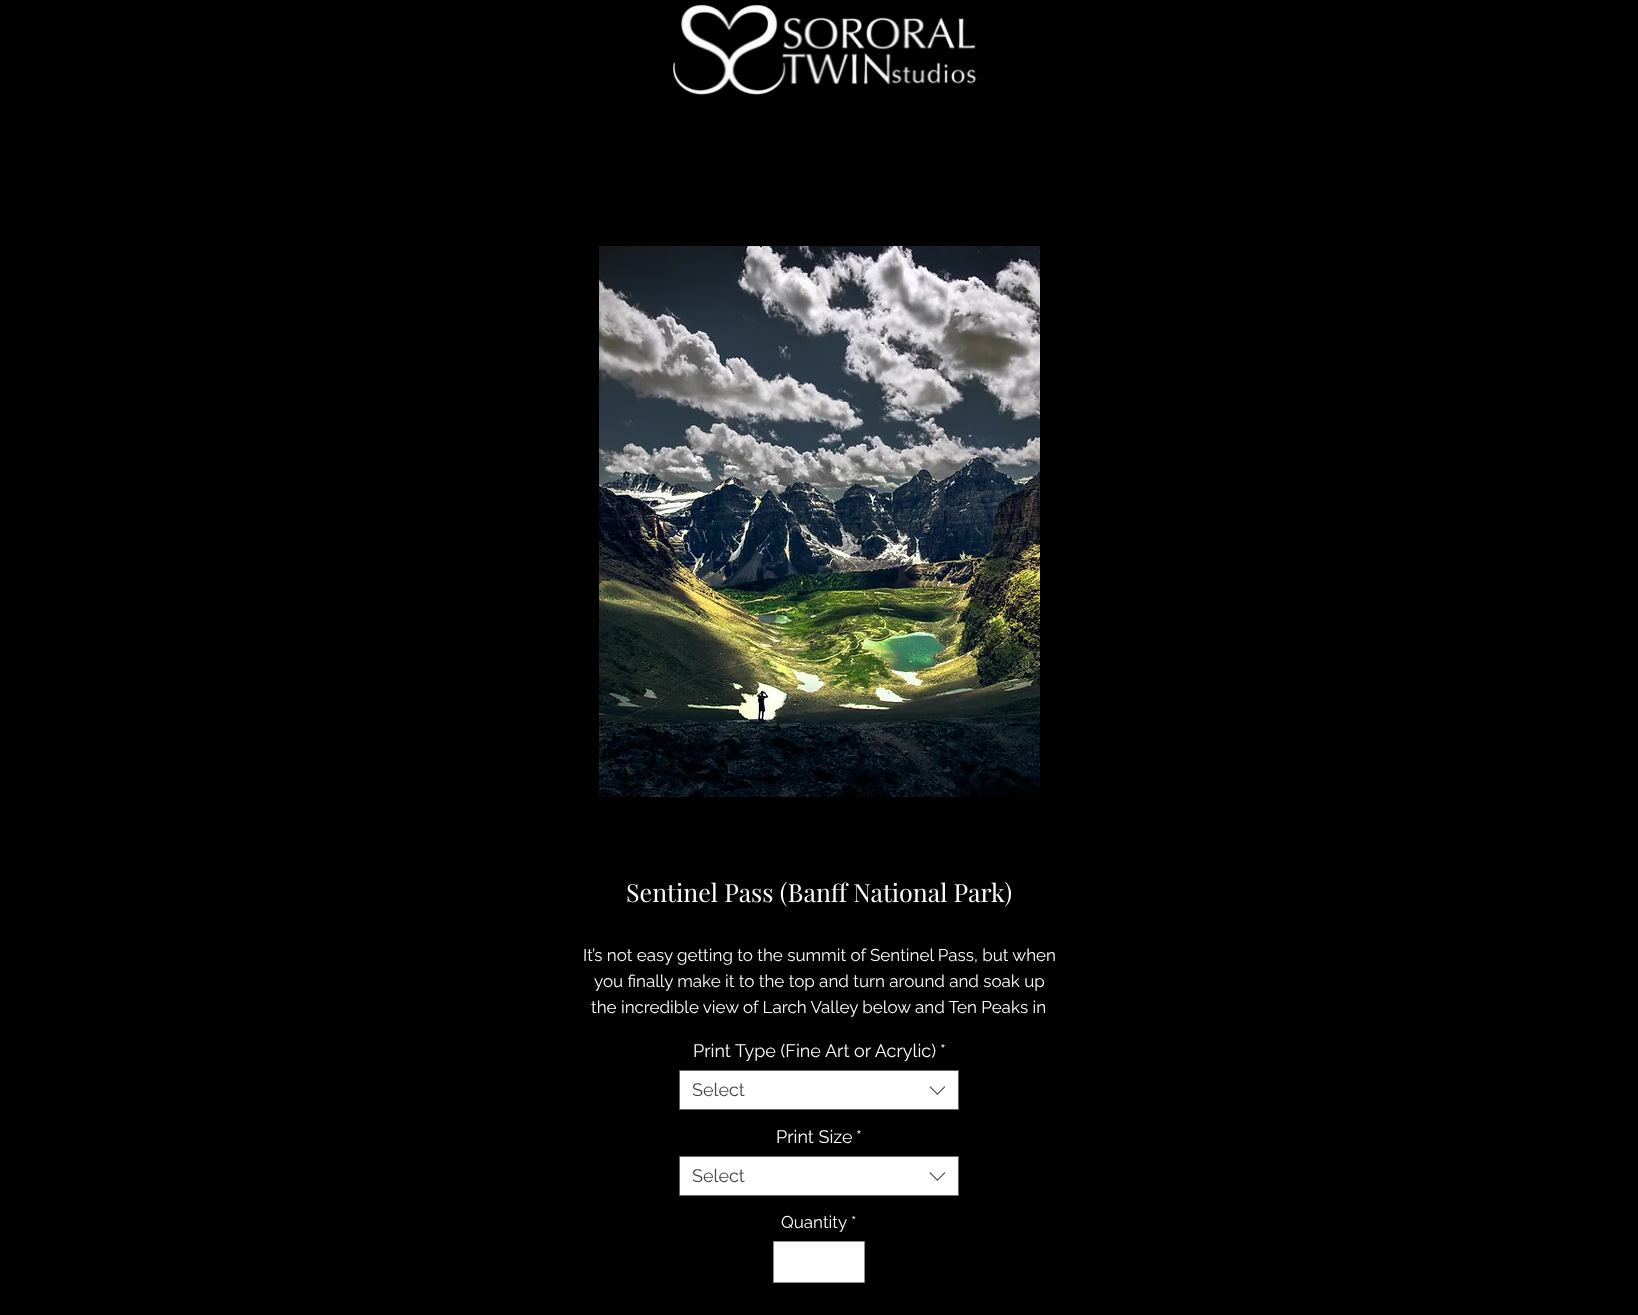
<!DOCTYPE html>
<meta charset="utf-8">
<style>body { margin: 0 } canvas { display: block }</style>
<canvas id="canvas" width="1638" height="1315"></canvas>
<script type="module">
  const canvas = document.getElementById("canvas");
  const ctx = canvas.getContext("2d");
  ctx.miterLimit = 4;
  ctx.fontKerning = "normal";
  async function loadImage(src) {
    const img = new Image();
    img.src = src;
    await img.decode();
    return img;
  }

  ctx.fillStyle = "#000000";
  ctx.fillRect(0, 0, 1638, 1315);
  ctx.drawImage(await loadImage("img1.png"), 673, 4, 304, 91);
  ctx.drawImage(await loadImage("img2.png"), 599, 246, 441, 551);
  ctx.font = "25px Playfair Display";
  ctx.fillStyle = "#ffffff";
  ctx.fillText("Sentinel Pass (Banff National Park)", 626, 902);
  ctx.font = "17px Raleway";
  ctx.fillText("It’s not easy getting to the summit of Sentinel Pass, but when", 583, 961);
  ctx.fillText("you finally make it to the top and turn around and soak up", 594, 987);
  ctx.fillText("the incredible view of Larch Valley below and Ten Peaks in", 591, 1013);
  ctx.font = "18px Raleway";
  ctx.fillText("Print Type (Fine Art or Acrylic)", 693, 1057);
  ctx.fillText("*", 940, 1057);
  ctx.beginPath();
  ctx.rect(679.5, 1070.5, 279, 39);
  ctx.fill();
  ctx.strokeStyle = "#666666";
  ctx.stroke();
  ctx.fillStyle = "#444444";
  ctx.fillText("Select", 692, 1096);
  ctx.drawImage(await loadImage("img3.png"), 929, 1086, 17, 9);
  ctx.fillStyle = "#ffffff";
  ctx.fillText("Print Size", 776, 1143);
  ctx.fillText("*", 856, 1143);
  ctx.beginPath();
  ctx.rect(679.5, 1156.5, 279, 39);
  ctx.fill();
  ctx.stroke();
  ctx.fillStyle = "#444444";
  ctx.fillText("Select", 692, 1182);
  ctx.drawImage(await loadImage("img3.png"), 929, 1172, 17, 9);
  ctx.font = "17px Raleway";
  ctx.fillStyle = "#ffffff";
  ctx.fillText("Quantity", 781, 1228);
  ctx.fillText("*", 851, 1228);
  ctx.beginPath();
  ctx.rect(773.5, 1241.5, 91, 41);
  ctx.fill();
  ctx.strokeStyle = "#8d8d8d";
  ctx.stroke();
</script>
